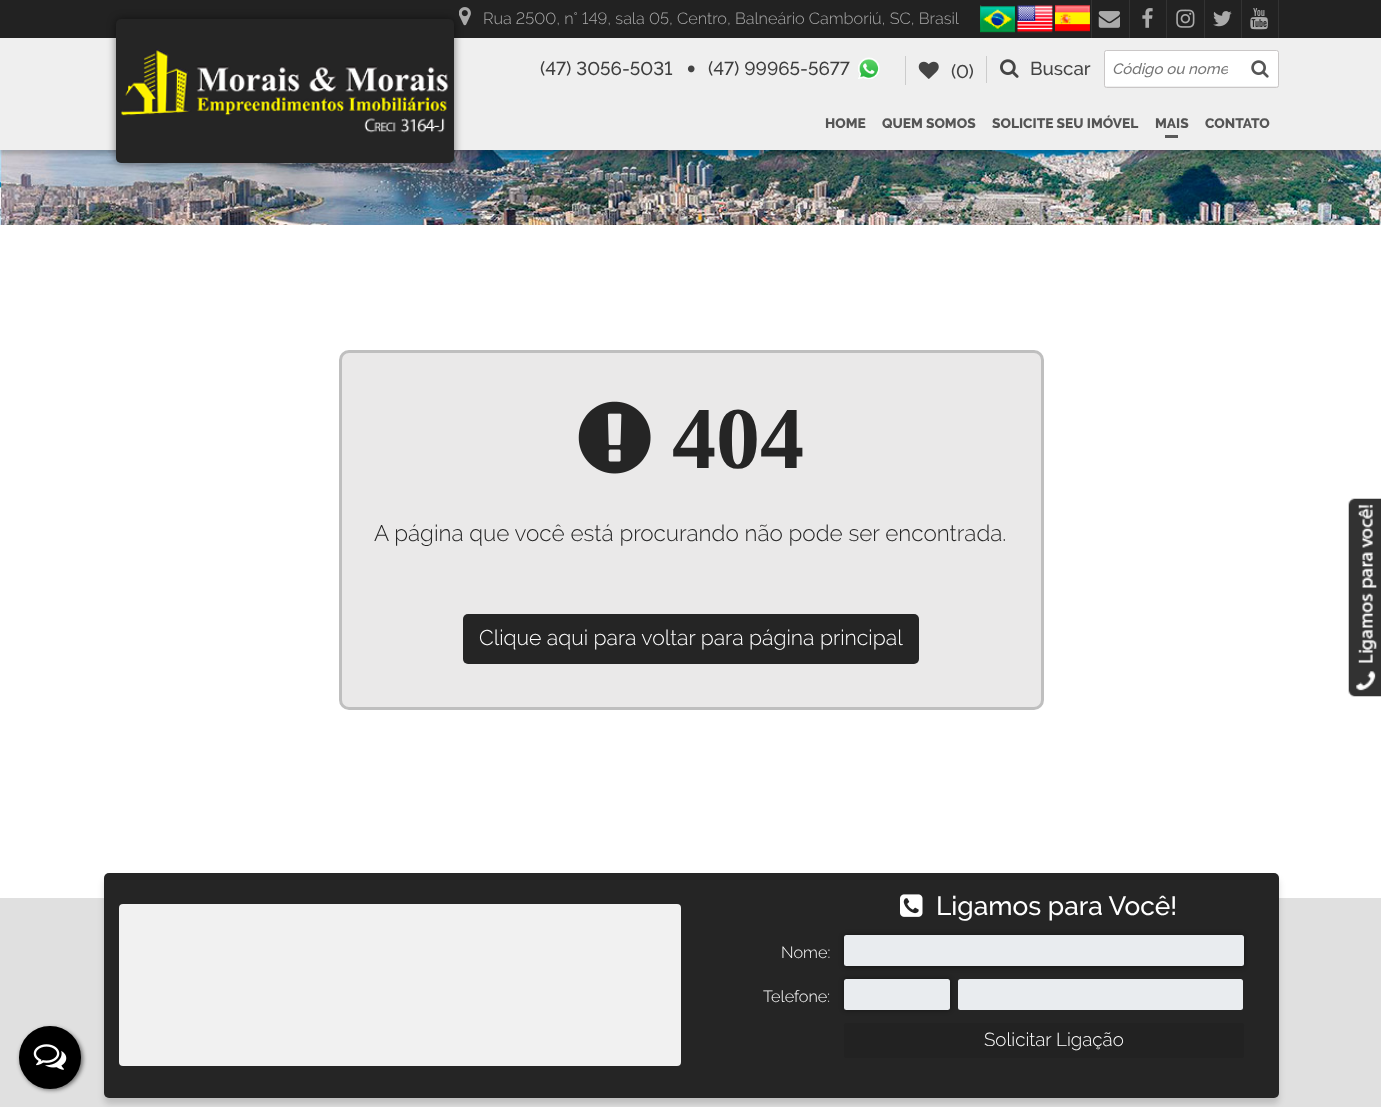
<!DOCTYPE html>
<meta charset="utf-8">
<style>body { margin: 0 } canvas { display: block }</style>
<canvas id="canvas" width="1381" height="1107"></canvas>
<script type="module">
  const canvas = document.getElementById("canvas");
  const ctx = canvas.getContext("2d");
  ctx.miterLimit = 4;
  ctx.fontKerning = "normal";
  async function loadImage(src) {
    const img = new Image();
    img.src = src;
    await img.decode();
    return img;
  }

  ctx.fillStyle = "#ffffff";
  ctx.fillRect(0, 0, 1381, 1107);
  ctx.drawImage(await loadImage("img15.png"), 0, 150, 1381, 75);
  ctx.fillStyle = "rgba(1, 1, 1, 0.2)";
  ctx.filter = "blur(2px)";
  ctx.beginPath();
  ctx.rect(0, 41, 1381, 113);
  ctx.fill();
  ctx.filter = "none";
  ctx.fillStyle = "#222222";
  ctx.fillRect(0, 0, 1381, 38);
  ctx.drawImage(await loadImage("img1.png"), 459, 7, 12, 19);
  ctx.font = "300 16.25px Raleway";
  ctx.fillStyle = "#aaaaaa";
  ctx.fillText("Rua 2500, n° 149, sala 05, Centro, Balneário Camboriú, SC, Brasil", 483, 24);
  ctx.drawImage(await loadImage("img2.png"), 980, 5, 35, 28);
  ctx.drawImage(await loadImage("img3.png"), 1017, 5, 36, 28);
  ctx.drawImage(await loadImage("img4.png"), 1055, 5, 35, 27);
  ctx.fillStyle = "#333333";
  ctx.fillRect(1091, 0, 1, 38);
  ctx.drawImage(await loadImage("img5.png"), 1098, 11, 22, 17);
  ctx.fillRect(1129, 0, 1, 38);
  ctx.drawImage(await loadImage("img6.png"), 1142, 8, 11, 20);
  ctx.fillRect(1166, 0, 1, 38);
  ctx.drawImage(await loadImage("img7.png"), 1176, 9, 19, 19);
  ctx.fillRect(1204, 0, 1, 38);
  ctx.drawImage(await loadImage("img8.png"), 1213, 11, 19, 16);
  ctx.fillRect(1278, 0, 1, 38);
  ctx.fillRect(1241, 0, 1, 38);
  ctx.drawImage(await loadImage("img9.png"), 1250, 8, 18, 22);
  ctx.fillStyle = "#efefef";
  ctx.fillRect(0, 38, 1381, 112);
  ctx.fillStyle = "rgba(0, 0, 0, 0.5)";
  ctx.filter = "blur(4.5px)";
  ctx.beginPath();
  ctx.roundRect(116, 19, 338, 144, 5);
  ctx.fill();
  ctx.filter = "none";
  ctx.fillStyle = "#252525";
  ctx.beginPath();
  ctx.roundRect(116, 19, 338, 144, 5);
  ctx.fill();
  ctx.drawImage(await loadImage("img10.png"), 121, 49, 329, 84);
  ctx.font = "500 18.75px Raleway";
  ctx.fillStyle = "#3e3e3e";
  ctx.fillText("(47) 3056-5031", 540, 75);
  ctx.font = "500 35px Raleway";
  ctx.fillStyle = "#444444";
  ctx.fillText("•", 685, 81);
  ctx.font = "500 18.75px Raleway";
  ctx.fillStyle = "#3e3e3e";
  ctx.fillText("(47) 99965-5677", 708, 75);
  ctx.drawImage(await loadImage("img11.png"), 858, 57, 22, 22);
  ctx.fillStyle = "#cccccc";
  ctx.fillRect(905, 56, 1, 29);
  ctx.drawImage(await loadImage("img12.png"), 918, 61, 21, 18);
  ctx.fillStyle = "#444444";
  ctx.fillText("(0)", 951, 78);
  ctx.fillStyle = "#cccccc";
  ctx.fillRect(986, 56, 1, 27);
  ctx.drawImage(await loadImage("img13.png"), 1000, 59, 19, 19);
  ctx.fillStyle = "#444444";
  ctx.fillText("Buscar", 1030, 75);
  ctx.fillStyle = "#ffffff";
  ctx.beginPath();
  ctx.roundRect(1105, 51, 173, 35, 1);
  ctx.fill();
  ctx.beginPath();
  ctx.roundRect(1104.5, 50.5, 174, 37, 2);
  ctx.strokeStyle = "#cac7c7";
  ctx.stroke();
  ctx.save();
  ctx.beginPath();
  ctx.rect(1113, 60, 115, 18);
  ctx.clip();
  ctx.font = "italic 500 15px Raleway";
  ctx.fillStyle = "#777777";
  ctx.fillText("Código ou nome", 1112, 74);
  ctx.restore();
  ctx.drawImage(await loadImage("img14.png"), 1251, 60, 18, 18);
  ctx.font = "800 13.75px Raleway";
  ctx.fillStyle = "#555555";
  ctx.fillText("HOME", 825, 128);
  ctx.fillText("QUEM SOMOS", 882, 128);
  ctx.fillText("SOLICITE SEU IMÓVEL", 992, 128);
  ctx.fillText("MAIS", 1155, 128);
  ctx.fillStyle = "#5a5a5a";
  ctx.fillRect(1165, 135, 13, 3);
  ctx.fillStyle = "#555555";
  ctx.fillText("CONTATO", 1205, 128);
  ctx.fillStyle = "#eae9e9";
  ctx.beginPath();
  ctx.roundRect(340.5, 351.5, 702, 357, 8.5);
  ctx.fill();
  ctx.strokeStyle = "#bfbfbf";
  ctx.lineWidth = 3;
  ctx.stroke();
  ctx.drawImage(await loadImage("img16.png"), 578, 401, 73, 73);
  ctx.font = "bold 88px Liberation Serif";
  ctx.fillStyle = "#252525";
  ctx.fillText("404", 672, 468);
  ctx.font = "300 22.5px Raleway";
  ctx.fillText("A página que você está procurando não pode ser encontrada.", 374, 541);
  ctx.beginPath();
  ctx.roundRect(463, 614, 456, 50, 5);
  ctx.fill();
  ctx.font = "300 21.25px Raleway";
  ctx.fillStyle = "#ffffff";
  ctx.fillText("Clique aqui para voltar para página principal", 479, 645);
  ctx.drawImage(await loadImage("img17.png"), 1348, 498, 33, 199);
  ctx.fillStyle = "#e0e0e0";
  ctx.fillRect(0, 898, 1381, 209);
  ctx.fillStyle = "rgba(0, 0, 0, 0.53)";
  ctx.filter = "blur(2px)";
  ctx.beginPath();
  ctx.roundRect(20, 1028, 63, 62, 31);
  ctx.fill();
  ctx.filter = "none";
  ctx.fillStyle = "#000000";
  ctx.beginPath();
  ctx.roundRect(19, 1026, 62, 63, 31);
  ctx.fill();
  ctx.drawImage(await loadImage("img18.png"), 33, 1044, 34, 26);
  ctx.fillStyle = "rgba(1, 1, 1, 0.15)";
  ctx.filter = "blur(3px)";
  ctx.beginPath();
  ctx.roundRect(104, 879, 1175, 225, 5);
  ctx.fill();
  ctx.filter = "none";
  ctx.fillStyle = "#252525";
  ctx.beginPath();
  ctx.roundRect(104, 873, 1175, 225, 5);
  ctx.fill();
  ctx.fillStyle = "#f1f1f1";
  ctx.beginPath();
  ctx.roundRect(119, 904, 562, 162, 4);
  ctx.fill();
  ctx.drawImage(await loadImage("img19.png"), 900, 894, 23, 23);
  ctx.font = "500 26.25px Raleway";
  ctx.fillStyle = "#ffffff";
  ctx.fillText("Ligamos para Você!", 936, 915);
  ctx.font = "300 16.25px Raleway";
  ctx.fillText("Nome:", 781, 958);
  ctx.fillStyle = "rgba(0, 0, 0, 0.3)";
  ctx.filter = "blur(2px)";
  ctx.beginPath();
  ctx.roundRect(843, 934, 402, 34, 4);
  ctx.fill();
  ctx.filter = "none";
  ctx.fillStyle = "#e9ecef";
  ctx.beginPath();
  ctx.roundRect(844, 935, 400, 31, 2.5);
  ctx.fill();
  ctx.fillStyle = "#ffffff";
  ctx.fillText("Telefone:", 763, 1002);
  ctx.fillStyle = "rgba(0, 0, 0, 0.3)";
  ctx.filter = "blur(2px)";
  ctx.beginPath();
  ctx.roundRect(843, 978, 108, 33, 4);
  ctx.fill();
  ctx.filter = "none";
  ctx.fillStyle = "#e9ecef";
  ctx.beginPath();
  ctx.roundRect(844, 979, 106, 31, 2.5);
  ctx.fill();
  ctx.beginPath();
  ctx.roundRect(958, 979, 285, 31, 2.5);
  ctx.fill();
  ctx.fillStyle = "#222222";
  ctx.beginPath();
  ctx.roundRect(844, 1023, 400, 35, 2.5);
  ctx.fill();
  ctx.font = "300 18.75px Raleway";
  ctx.fillStyle = "#ffffff";
  ctx.fillText("Solicitar Ligação", 984, 1046);
</script>
